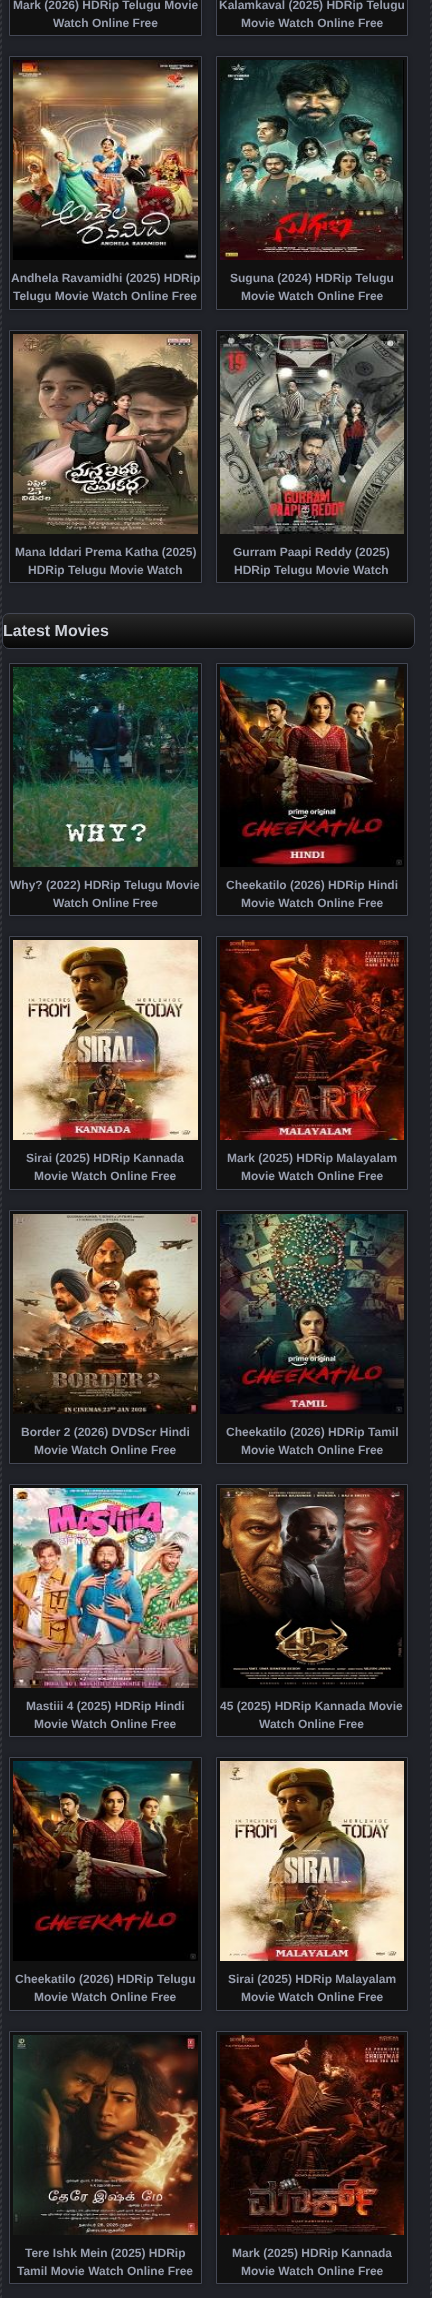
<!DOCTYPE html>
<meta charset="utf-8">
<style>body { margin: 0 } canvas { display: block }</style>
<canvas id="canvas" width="432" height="2298"></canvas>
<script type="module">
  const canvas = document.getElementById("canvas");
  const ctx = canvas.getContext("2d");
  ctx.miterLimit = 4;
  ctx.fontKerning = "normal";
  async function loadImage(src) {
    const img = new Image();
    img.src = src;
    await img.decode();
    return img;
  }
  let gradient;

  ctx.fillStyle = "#202228";
  ctx.fillRect(0, 0, 432, 2298);
  ctx.drawImage(await loadImage("img1.png"), 0, 0, 432, 2298);
  ctx.fillRect(2, 0, 428, 2298);
  ctx.fillStyle = "rgba(0, 0, 0, 0.3)";
  ctx.filter = "blur(2px)";
  ctx.beginPath();
  ctx.rect(9, -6, 193, 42);
  ctx.fill();
  ctx.filter = "none";
  ctx.fillStyle = "#111111";
  ctx.beginPath();
  ctx.rect(9.5, -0.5, 192, 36);
  ctx.fill();
  ctx.strokeStyle = "#444855";
  ctx.stroke();
  ctx.font = "bold 12px Liberation Sans";
  ctx.fillStyle = "#989eae";
  ctx.fillText("Mark (2026) HDRip Telugu Movie", 13, 9);
  ctx.fillText("Watch Online Free", 53, 27);
  ctx.fillStyle = "rgba(0, 0, 0, 0.3)";
  ctx.filter = "blur(2px)";
  ctx.beginPath();
  ctx.rect(216, -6, 192, 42);
  ctx.fill();
  ctx.filter = "none";
  ctx.fillStyle = "#111111";
  ctx.beginPath();
  ctx.rect(216.5, -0.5, 191, 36);
  ctx.fill();
  ctx.stroke();
  ctx.fillStyle = "#989eae";
  ctx.fillText("Kalamkaval (2025) HDRip Telugu", 219, 9);
  ctx.fillText("Movie Watch Online Free", 241, 27);
  ctx.fillStyle = "rgba(0, 0, 0, 0.3)";
  ctx.filter = "blur(2px)";
  ctx.beginPath();
  ctx.rect(9, 56, 193, 254);
  ctx.fill();
  ctx.filter = "none";
  ctx.fillStyle = "#111111";
  ctx.beginPath();
  ctx.rect(9.5, 56.5, 192, 253);
  ctx.fill();
  ctx.stroke();
  ctx.drawImage(await loadImage("img2.png"), 13, 60, 185, 200);
  ctx.fillStyle = "#989eae";
  ctx.fillText("Andhela Ravamidhi (2025) HDRip", 11, 282);
  ctx.fillText("Telugu Movie Watch Online Free", 13, 300);
  ctx.fillStyle = "rgba(0, 0, 0, 0.3)";
  ctx.filter = "blur(2px)";
  ctx.beginPath();
  ctx.rect(216, 56, 192, 254);
  ctx.fill();
  ctx.filter = "none";
  ctx.fillStyle = "#111111";
  ctx.beginPath();
  ctx.rect(216.5, 56.5, 191, 253);
  ctx.fill();
  ctx.stroke();
  ctx.drawImage(await loadImage("img3.png"), 220, 60, 184, 200);
  ctx.fillStyle = "#989eae";
  ctx.fillText("Suguna (2024) HDRip Telugu", 230, 282);
  ctx.fillText("Movie Watch Online Free", 241, 300);
  ctx.fillStyle = "rgba(0, 0, 0, 0.3)";
  ctx.filter = "blur(2px)";
  ctx.beginPath();
  ctx.rect(9, 330, 193, 253);
  ctx.fill();
  ctx.filter = "none";
  ctx.fillStyle = "#111111";
  ctx.beginPath();
  ctx.rect(9.5, 330.5, 192, 252);
  ctx.fill();
  ctx.stroke();
  ctx.drawImage(await loadImage("img4.png"), 13, 334, 185, 200);
  ctx.fillStyle = "#989eae";
  ctx.fillText("Mana Iddari Prema Katha (2025)", 15, 556);
  ctx.fillText("HDRip Telugu Movie Watch", 28, 574);
  ctx.fillStyle = "rgba(0, 0, 0, 0.3)";
  ctx.filter = "blur(2px)";
  ctx.beginPath();
  ctx.rect(216, 330, 192, 253);
  ctx.fill();
  ctx.filter = "none";
  ctx.fillStyle = "#111111";
  ctx.beginPath();
  ctx.rect(216.5, 330.5, 191, 252);
  ctx.fill();
  ctx.stroke();
  ctx.drawImage(await loadImage("img5.png"), 220, 334, 184, 200);
  ctx.fillStyle = "#989eae";
  ctx.fillText("Gurram Paapi Reddy (2025)", 233, 556);
  ctx.fillText("HDRip Telugu Movie Watch", 234, 574);
  ctx.save();
  ctx.beginPath();
  ctx.roundRect(2, 613, 413, 36, 7);
  ctx.clip();
  gradient = ctx.createLinearGradient(209, 614, 209, 648);
  gradient.addColorStop(0.01, "#272727");
  gradient.addColorStop(1, "#070707");
  ctx.fillStyle = gradient;
  ctx.fillRect(2, 614, 413, 34);
  ctx.restore();
  ctx.beginPath();
  ctx.roundRect(2.5, 613.5, 412, 35, 6.5);
  ctx.stroke();
  ctx.font = "bold 16px Liberation Sans";
  ctx.fillStyle = "#cccfd7";
  ctx.fillText("Latest Movies", 3, 636);
  ctx.fillStyle = "rgba(0, 0, 0, 0.3)";
  ctx.filter = "blur(2px)";
  ctx.beginPath();
  ctx.rect(9, 663, 193, 253);
  ctx.fill();
  ctx.filter = "none";
  ctx.fillStyle = "#111111";
  ctx.beginPath();
  ctx.rect(9.5, 663.5, 192, 252);
  ctx.fill();
  ctx.stroke();
  ctx.drawImage(await loadImage("img6.png"), 13, 667, 185, 200);
  ctx.font = "bold 12px Liberation Sans";
  ctx.fillStyle = "#989eae";
  ctx.fillText("Why? (2022) HDRip Telugu Movie", 10, 889);
  ctx.fillText("Watch Online Free", 53, 907);
  ctx.fillStyle = "rgba(0, 0, 0, 0.3)";
  ctx.filter = "blur(2px)";
  ctx.beginPath();
  ctx.rect(216, 663, 192, 253);
  ctx.fill();
  ctx.filter = "none";
  ctx.fillStyle = "#111111";
  ctx.beginPath();
  ctx.rect(216.5, 663.5, 191, 252);
  ctx.fill();
  ctx.stroke();
  ctx.drawImage(await loadImage("img7.png"), 220, 667, 184, 200);
  ctx.fillStyle = "#989eae";
  ctx.fillText("Cheekatilo (2026) HDRip Hindi", 226, 889);
  ctx.fillText("Movie Watch Online Free", 241, 907);
  ctx.fillStyle = "rgba(0, 0, 0, 0.3)";
  ctx.filter = "blur(2px)";
  ctx.beginPath();
  ctx.rect(9, 936, 193, 254);
  ctx.fill();
  ctx.filter = "none";
  ctx.fillStyle = "#111111";
  ctx.beginPath();
  ctx.rect(9.5, 936.5, 192, 253);
  ctx.fill();
  ctx.stroke();
  ctx.drawImage(await loadImage("img8.png"), 13, 940, 185, 200);
  ctx.fillStyle = "#989eae";
  ctx.fillText("Sirai (2025) HDRip Kannada", 26, 1162);
  ctx.fillText("Movie Watch Online Free", 34, 1180);
  ctx.fillStyle = "rgba(0, 0, 0, 0.3)";
  ctx.filter = "blur(2px)";
  ctx.beginPath();
  ctx.rect(216, 936, 192, 254);
  ctx.fill();
  ctx.filter = "none";
  ctx.fillStyle = "#111111";
  ctx.beginPath();
  ctx.rect(216.5, 936.5, 191, 253);
  ctx.fill();
  ctx.stroke();
  ctx.drawImage(await loadImage("img9.png"), 220, 940, 184, 200);
  ctx.fillStyle = "#989eae";
  ctx.fillText("Mark (2025) HDRip Malayalam", 227, 1162);
  ctx.fillText("Movie Watch Online Free", 241, 1180);
  ctx.fillStyle = "rgba(0, 0, 0, 0.3)";
  ctx.filter = "blur(2px)";
  ctx.beginPath();
  ctx.rect(9, 1210, 193, 254);
  ctx.fill();
  ctx.filter = "none";
  ctx.fillStyle = "#111111";
  ctx.beginPath();
  ctx.rect(9.5, 1210.5, 192, 253);
  ctx.fill();
  ctx.stroke();
  ctx.drawImage(await loadImage("img10.png"), 13, 1214, 185, 200);
  ctx.fillStyle = "#989eae";
  ctx.fillText("Border 2 (2026) DVDScr Hindi", 21, 1436);
  ctx.fillText("Movie Watch Online Free", 34, 1454);
  ctx.fillStyle = "rgba(0, 0, 0, 0.3)";
  ctx.filter = "blur(2px)";
  ctx.beginPath();
  ctx.rect(216, 1210, 192, 254);
  ctx.fill();
  ctx.filter = "none";
  ctx.fillStyle = "#111111";
  ctx.beginPath();
  ctx.rect(216.5, 1210.5, 191, 253);
  ctx.fill();
  ctx.stroke();
  ctx.drawImage(await loadImage("img11.png"), 220, 1214, 184, 200);
  ctx.fillStyle = "#989eae";
  ctx.fillText("Cheekatilo (2026) HDRip Tamil", 226, 1436);
  ctx.fillText("Movie Watch Online Free", 241, 1454);
  ctx.fillStyle = "rgba(0, 0, 0, 0.3)";
  ctx.filter = "blur(2px)";
  ctx.beginPath();
  ctx.rect(9, 1484, 193, 253);
  ctx.fill();
  ctx.filter = "none";
  ctx.fillStyle = "#111111";
  ctx.beginPath();
  ctx.rect(9.5, 1484.5, 192, 252);
  ctx.fill();
  ctx.stroke();
  ctx.drawImage(await loadImage("img12.png"), 13, 1488, 185, 200);
  ctx.fillStyle = "#989eae";
  ctx.fillText("Mastiii 4 (2025) HDRip Hindi", 26, 1710);
  ctx.fillText("Movie Watch Online Free", 34, 1728);
  ctx.fillStyle = "rgba(0, 0, 0, 0.3)";
  ctx.filter = "blur(2px)";
  ctx.beginPath();
  ctx.rect(216, 1484, 192, 253);
  ctx.fill();
  ctx.filter = "none";
  ctx.fillStyle = "#111111";
  ctx.beginPath();
  ctx.rect(216.5, 1484.5, 191, 252);
  ctx.fill();
  ctx.stroke();
  ctx.drawImage(await loadImage("img13.png"), 220, 1488, 184, 200);
  ctx.fillStyle = "#989eae";
  ctx.fillText("45 (2025) HDRip Kannada Movie", 220, 1710);
  ctx.fillText("Watch Online Free", 259, 1728);
  ctx.fillStyle = "rgba(0, 0, 0, 0.3)";
  ctx.filter = "blur(2px)";
  ctx.beginPath();
  ctx.rect(9, 1757, 193, 254);
  ctx.fill();
  ctx.filter = "none";
  ctx.fillStyle = "#111111";
  ctx.beginPath();
  ctx.rect(9.5, 1757.5, 192, 253);
  ctx.fill();
  ctx.stroke();
  ctx.drawImage(await loadImage("img14.png"), 13, 1761, 185, 200);
  ctx.fillStyle = "#989eae";
  ctx.fillText("Cheekatilo (2026) HDRip Telugu", 15, 1983);
  ctx.fillText("Movie Watch Online Free", 34, 2001);
  ctx.fillStyle = "rgba(0, 0, 0, 0.3)";
  ctx.filter = "blur(2px)";
  ctx.beginPath();
  ctx.rect(216, 1757, 192, 254);
  ctx.fill();
  ctx.filter = "none";
  ctx.fillStyle = "#111111";
  ctx.beginPath();
  ctx.rect(216.5, 1757.5, 191, 253);
  ctx.fill();
  ctx.stroke();
  ctx.drawImage(await loadImage("img15.png"), 220, 1761, 184, 200);
  ctx.fillStyle = "#989eae";
  ctx.fillText("Sirai (2025) HDRip Malayalam", 228, 1983);
  ctx.fillText("Movie Watch Online Free", 241, 2001);
  ctx.fillStyle = "rgba(0, 0, 0, 0.3)";
  ctx.filter = "blur(2px)";
  ctx.beginPath();
  ctx.rect(9, 2031, 193, 253);
  ctx.fill();
  ctx.filter = "none";
  ctx.fillStyle = "#111111";
  ctx.beginPath();
  ctx.rect(9.5, 2031.5, 192, 252);
  ctx.fill();
  ctx.stroke();
  ctx.drawImage(await loadImage("img16.png"), 13, 2035, 185, 200);
  ctx.fillStyle = "#989eae";
  ctx.fillText("Tere Ishk Mein (2025) HDRip", 25, 2257);
  ctx.fillText("Tamil Movie Watch Online Free", 17, 2275);
  ctx.fillStyle = "rgba(0, 0, 0, 0.3)";
  ctx.filter = "blur(2px)";
  ctx.beginPath();
  ctx.rect(216, 2031, 192, 253);
  ctx.fill();
  ctx.filter = "none";
  ctx.fillStyle = "#111111";
  ctx.beginPath();
  ctx.rect(216.5, 2031.5, 191, 252);
  ctx.fill();
  ctx.stroke();
  ctx.drawImage(await loadImage("img17.png"), 220, 2035, 184, 200);
  ctx.fillStyle = "#989eae";
  ctx.fillText("Mark (2025) HDRip Kannada", 232, 2257);
  ctx.fillText("Movie Watch Online Free", 241, 2275);
</script>
